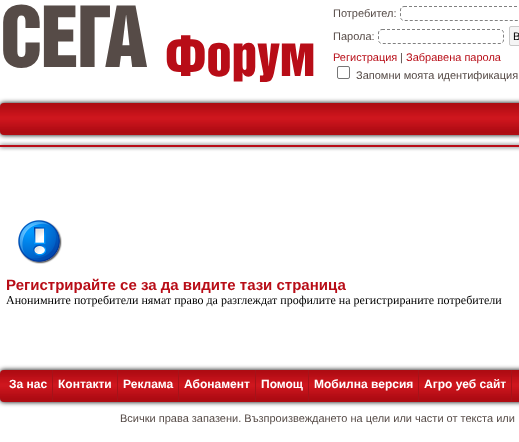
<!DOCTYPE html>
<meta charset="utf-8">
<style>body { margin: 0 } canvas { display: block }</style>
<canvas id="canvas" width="519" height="442"></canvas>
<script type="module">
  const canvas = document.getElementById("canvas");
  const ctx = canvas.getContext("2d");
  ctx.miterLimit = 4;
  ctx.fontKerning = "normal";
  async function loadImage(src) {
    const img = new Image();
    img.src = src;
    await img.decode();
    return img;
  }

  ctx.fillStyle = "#ffffff";
  ctx.fillRect(0, 0, 519, 442);
  ctx.letterSpacing = "-2px";
  ctx.font = "bold 77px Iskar";
  ctx.fillStyle = "#564b47";
  ctx.fillText("СЕГА", 0, 67);
  ctx.letterSpacing = "0px";
  ctx.font = "bold 51px Iskar";
  ctx.fillStyle = "#b80d17";
  ctx.fillText("Форум", 165, 76);
  ctx.font = "11px Liberation Sans";
  ctx.fillStyle = "#564b47";
  ctx.fillText("Потребител:", 333, 17);
  ctx.beginPath();
  ctx.moveTo(404, 6.5);
  ctx.lineTo(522, 6.5);
  ctx.bezierCurveTo(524, 6.5, 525.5, 8, 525.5, 10);
  ctx.lineTo(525.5, 17);
  ctx.bezierCurveTo(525.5, 19, 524, 20.5, 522, 20.5);
  ctx.lineTo(404, 20.5);
  ctx.bezierCurveTo(402, 20.5, 400.5, 19, 400.5, 17);
  ctx.lineTo(400.5, 10);
  ctx.bezierCurveTo(400.5, 8, 402, 6.5, 404, 6.5);
  ctx.closePath();
  ctx.strokeStyle = "#808080";
  ctx.setLineDash([3, 2]);
  ctx.stroke();
  ctx.fillText("Парола:", 333, 40);
  ctx.beginPath();
  ctx.moveTo(382, 29.5);
  ctx.lineTo(500, 29.5);
  ctx.bezierCurveTo(502, 29.5, 503.5, 31, 503.5, 33);
  ctx.lineTo(503.5, 40);
  ctx.bezierCurveTo(503.5, 42, 502, 43.5, 500, 43.5);
  ctx.lineTo(382, 43.5);
  ctx.bezierCurveTo(380, 43.5, 378.5, 42, 378.5, 40);
  ctx.lineTo(378.5, 33);
  ctx.bezierCurveTo(378.5, 31, 380, 29.5, 382, 29.5);
  ctx.closePath();
  ctx.stroke();
  ctx.fillStyle = "#f5f5f5";
  ctx.beginPath();
  ctx.roundRect(509.5, 26.5, 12, 19, 1.5);
  ctx.fill();
  ctx.strokeStyle = "#c9c9c9";
  ctx.setLineDash([]);
  ctx.stroke();
  ctx.fillStyle = "#000000";
  ctx.fillText("В", 513, 40);
  ctx.fillStyle = "#b80d17";
  ctx.fillText("Регистрация", 333, 61);
  ctx.fillStyle = "#564b47";
  ctx.fillText("|", 400, 61);
  ctx.fillStyle = "#b80d17";
  ctx.fillText("Забравена парола", 406, 61);
  ctx.beginPath();
  ctx.roundRect(337.5, 66.5, 12, 12, 1.5);
  ctx.strokeStyle = "#767676";
  ctx.stroke();
  ctx.fillStyle = "#564b47";
  ctx.fillText("Запомни моята идентификация", 356, 79);
  ctx.fillStyle = "#000000";
  ctx.filter = "blur(2.5px)";
  ctx.beginPath();
  ctx.roundRect(0, 103, 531, 32, 4);
  ctx.fill();
  ctx.filter = "none";
  ctx.drawImage(await loadImage("img1.png"), 0, 103, 519, 32);
  ctx.fillStyle = "#333333";
  ctx.filter = "blur(2px)";
  ctx.beginPath();
  ctx.rect(0, 145, 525, 2);
  ctx.fill();
  ctx.filter = "none";
  ctx.fillStyle = "#b80d17";
  ctx.fillRect(0, 145, 519, 2);
  ctx.drawImage(await loadImage("img2.png"), 18, 220, 44, 44);
  ctx.font = "bold 15px Liberation Sans";
  ctx.fillText("Регистрирайте се за да видите тази страница", 6, 290);
  ctx.font = "12px Liberation Serif";
  ctx.fillStyle = "#000000";
  ctx.fillText("Анонимните потребители нямат право да разглеждат профилите на регистрираните потребители", 6, 304);
  ctx.filter = "blur(2.5px)";
  ctx.beginPath();
  ctx.roundRect(0, 370, 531, 32, 4);
  ctx.fill();
  ctx.filter = "none";
  ctx.drawImage(await loadImage("img1.png"), 0, 370, 519, 32);
  ctx.fillStyle = "#a51319";
  ctx.fillRect(52, 370, 1, 32);
  ctx.font = "bold 12px Liberation Sans";
  ctx.fillStyle = "#ffffff";
  ctx.fillText("За нас", 9, 388);
  ctx.fillStyle = "#a51319";
  ctx.fillRect(117, 370, 1, 32);
  ctx.fillStyle = "#ffffff";
  ctx.fillText("Контакти", 58, 388);
  ctx.fillStyle = "#a51319";
  ctx.fillRect(178, 370, 1, 32);
  ctx.fillStyle = "#ffffff";
  ctx.fillText("Реклама", 123, 388);
  ctx.fillStyle = "#a51319";
  ctx.fillRect(255, 370, 1, 32);
  ctx.fillStyle = "#ffffff";
  ctx.fillText("Абонамент", 184, 388);
  ctx.fillStyle = "#a51319";
  ctx.fillRect(308, 370, 1, 32);
  ctx.fillStyle = "#ffffff";
  ctx.fillText("Помощ", 261, 388);
  ctx.fillStyle = "#a51319";
  ctx.fillRect(418, 370, 1, 32);
  ctx.fillStyle = "#ffffff";
  ctx.fillText("Мобилна версия", 314, 388);
  ctx.fillStyle = "#a51319";
  ctx.fillRect(511, 370, 1, 32);
  ctx.fillStyle = "#ffffff";
  ctx.fillText("Агро уеб сайт", 424, 388);
  ctx.font = "11px Liberation Sans";
  ctx.fillStyle = "#564b47";
  ctx.fillText("Всички права запазени. Възпроизвеждането на цели или части от текста или", 120, 422);
</script>
